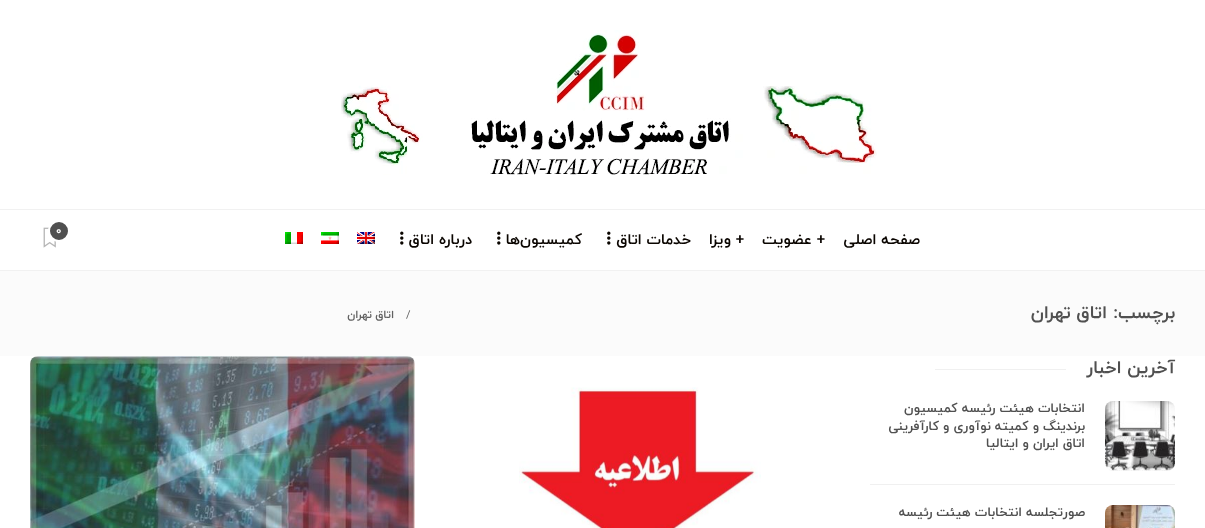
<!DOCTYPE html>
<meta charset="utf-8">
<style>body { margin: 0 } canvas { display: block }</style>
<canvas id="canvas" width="1205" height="528"></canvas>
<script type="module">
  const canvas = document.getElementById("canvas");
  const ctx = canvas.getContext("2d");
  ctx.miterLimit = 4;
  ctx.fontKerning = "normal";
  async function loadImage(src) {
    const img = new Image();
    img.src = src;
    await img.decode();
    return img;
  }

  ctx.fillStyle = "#ffffff";
  ctx.fillRect(0, 0, 1205, 528);
  ctx.drawImage(await loadImage("img1.png"), 341, 30, 536, 145);
  ctx.fillStyle = "#f1f1f1";
  ctx.fillRect(0, 209, 1205, 1);
  ctx.fillRect(0, 270, 1205, 1);
  ctx.drawImage(await loadImage("img2.png"), 43, 227, 13, 21);
  ctx.fillStyle = "#505050";
  ctx.beginPath();
  ctx.arc(59, 231, 10, 0, Math.PI * 2);
  ctx.fill();
  ctx.strokeStyle = "#ffffff";
  ctx.lineWidth = 2;
  ctx.stroke();
  ctx.font = "bold 11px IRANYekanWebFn";
  ctx.fillStyle = "#ffffff";
  ctx.fillText("0", 56, 234);
  ctx.direction = "rtl";
  ctx.font = "bold 15px IRANYekanWebFn";
  ctx.fillStyle = "#0a0500";
  ctx.fillText("صفحه اصلی", 920, 244);
  ctx.fillText("+ عضویت", 825, 244);
  ctx.fillText("+ ویزا", 744, 244);
  ctx.fillText("خدمات اتاق", 691, 244);
  ctx.drawImage(await loadImage("img3.png"), 607, 231, 4, 14);
  ctx.fillText("کمیسیون‌ها", 582, 244);
  ctx.drawImage(await loadImage("img3.png"), 497, 231, 4, 14);
  ctx.fillText("درباره اتاق", 472, 244);
  ctx.drawImage(await loadImage("img3.png"), 400, 231, 4, 14);
  ctx.drawImage(await loadImage("img4.png"), 357, 232, 18, 12);
  ctx.drawImage(await loadImage("img5.png"), 321, 232, 18, 12);
  ctx.drawImage(await loadImage("img6.png"), 285, 232, 18, 12);
  ctx.fillStyle = "#fbfbfb";
  ctx.fillRect(0, 271, 1205, 85);
  ctx.font = "bold 18px IRANYekanWebFn";
  ctx.fillStyle = "#505050";
  ctx.fillText("برچسب:", 1175, 318);
  ctx.fillText("اتاق تهران", 1107, 318);
  ctx.direction = "ltr";
  ctx.font = "11px IRANYekanWebFn";
  ctx.fillStyle = "#616161";
  ctx.fillText("/", 406, 318);
  ctx.direction = "rtl";
  ctx.font = "bold 11px IRANYekanWebFn";
  ctx.fillText("اتاق تهران", 394, 318);
  ctx.font = "bold 18px IRANYekanWebFn";
  ctx.fillStyle = "#505050";
  ctx.fillText("آخرین اخبار", 1175, 373);
  ctx.fillStyle = "#f0f0f0";
  ctx.fillRect(935, 369, 131, 1);
  ctx.fillRect(870, 484, 305, 1);
  ctx.drawImage(await loadImage("img7.png"), 1105, 401, 70, 70);
  ctx.font = "bold 13px IRANYekanWebFn";
  ctx.fillStyle = "#505050";
  ctx.fillText("انتخابات هیئت رئیسه کمیسیون‌", 1085, 412);
  ctx.fillText("برندینگ و کمیته نو‌آوری و کارآفرینی", 1085, 430);
  ctx.fillText("اتاق ایران و ایتالیا", 1085, 447);
  ctx.drawImage(await loadImage("img8.png"), 1105, 505, 70, 23);
  ctx.fillText("صورتجلسه انتخابات هیئت رئیسه", 1085, 516);
  ctx.drawImage(await loadImage("img9.png"), 519, 387, 242, 141);
  ctx.drawImage(await loadImage("img10.png"), 30, 356, 385, 172);
</script>
